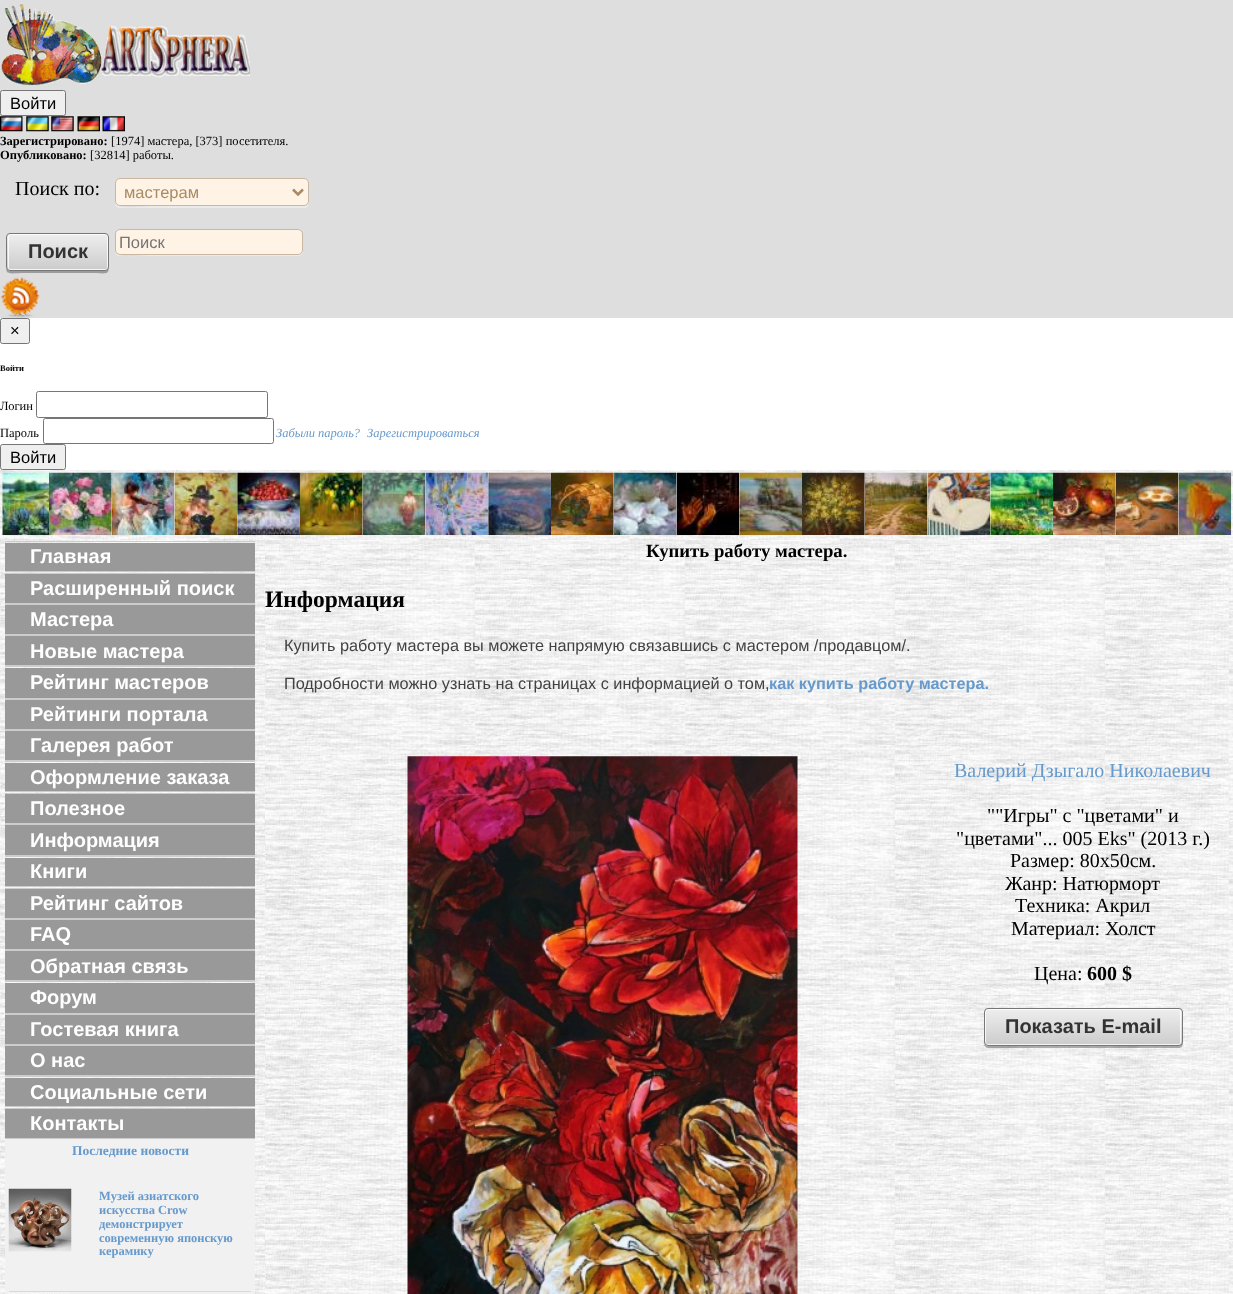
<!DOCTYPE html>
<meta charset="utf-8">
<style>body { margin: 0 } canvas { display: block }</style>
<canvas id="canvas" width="1233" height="1294"></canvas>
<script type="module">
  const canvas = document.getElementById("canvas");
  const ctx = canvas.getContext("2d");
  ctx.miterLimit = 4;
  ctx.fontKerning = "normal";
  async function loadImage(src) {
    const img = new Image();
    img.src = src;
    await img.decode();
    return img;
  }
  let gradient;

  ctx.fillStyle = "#ffffff";
  ctx.fillRect(0, 0, 1233, 1294);
  ctx.fillStyle = "#dedede";
  ctx.fillRect(0, 0, 1233, 318);
  ctx.drawImage(await loadImage("img1.png"), 1, 4, 249, 82);
  ctx.fillStyle = "#efefef";
  ctx.beginPath();
  ctx.roundRect(0.5, 90.5, 65, 25, 2);
  ctx.fill();
  ctx.strokeStyle = "#767676";
  ctx.stroke();
  ctx.font = "16.5px Liberation Sans";
  ctx.fillStyle = "#000000";
  ctx.fillText("Войти", 10, 109);
  ctx.drawImage(await loadImage("img2.png"), 0, 116, 23, 16);
  ctx.drawImage(await loadImage("img3.png"), 26, 116, 23, 16);
  ctx.drawImage(await loadImage("img4.png"), 51, 116, 23, 16);
  ctx.drawImage(await loadImage("img5.png"), 77, 116, 23, 16);
  ctx.drawImage(await loadImage("img6.png"), 102, 116, 23, 16);
  ctx.font = "bold 12.5px Liberation Serif";
  ctx.fillText("Зарегистрировано:", 0, 145);
  ctx.font = "12.5px Liberation Serif";
  ctx.fillText("[1974] мастера, [373] посетителя.", 111, 145);
  ctx.font = "bold 12.5px Liberation Serif";
  ctx.fillText("Опубликовано:", 0, 159);
  ctx.font = "12.5px Liberation Serif";
  ctx.fillText("[32814] работы.", 90, 159);
  ctx.font = "20px Liberation Serif";
  ctx.fillText("Поиск по:", 15, 195);
  ctx.fillStyle = "#ebebeb";
  ctx.beginPath();
  ctx.moveTo(115, 201);
  ctx.bezierCurveTo(115, 205, 116, 208, 120, 208);
  ctx.lineTo(304, 208);
  ctx.bezierCurveTo(310, 208, 309, 201, 309, 197);
  ctx.lineTo(309, 182);
  ctx.lineTo(309, 195);
  ctx.bezierCurveTo(309, 199, 310, 206, 304, 206);
  ctx.lineTo(151, 206);
  ctx.bezierCurveTo(141, 206, 115, 211, 115, 201);
  ctx.closePath();
  ctx.fill();
  ctx.fillStyle = "#fff3e5";
  ctx.beginPath();
  ctx.roundRect(115.5, 178.5, 193, 27, 4.5);
  ctx.fill();
  ctx.strokeStyle = "#c9b7a2";
  ctx.stroke();
  ctx.beginPath();
  ctx.moveTo(293, 189.5);
  ctx.lineTo(298, 194.5);
  ctx.lineTo(303, 189.5);
  ctx.strokeStyle = "#a88a65";
  ctx.lineWidth = 2.5;
  ctx.stroke();
  ctx.font = "16.5px Liberation Sans";
  ctx.fillStyle = "#a88a65";
  ctx.fillText("мастерам", 124, 198);
  ctx.fillStyle = "#ebebeb";
  ctx.beginPath();
  ctx.moveTo(115, 250);
  ctx.lineTo(115, 251);
  ctx.bezierCurveTo(115, 254, 117, 256, 120, 256);
  ctx.lineTo(298, 256);
  ctx.bezierCurveTo(301, 256, 303, 254, 303, 251);
  ctx.lineTo(303, 235);
  ctx.lineTo(302, 233);
  ctx.lineTo(302, 245);
  ctx.bezierCurveTo(302, 248, 303, 255, 298, 255);
  ctx.lineTo(150, 255);
  ctx.bezierCurveTo(140, 255, 115, 260, 115, 250);
  ctx.closePath();
  ctx.fill();
  ctx.fillStyle = "#fff3e5";
  ctx.beginPath();
  ctx.roundRect(115.5, 229.5, 187, 25, 4.5);
  ctx.fill();
  ctx.strokeStyle = "#c9b7a2";
  ctx.lineWidth = 1;
  ctx.stroke();
  ctx.fillStyle = "#757575";
  ctx.fillText("Поиск", 119, 248);
  ctx.fillStyle = "#9b9b9b";
  ctx.beginPath();
  ctx.moveTo(6, 237);
  ctx.lineTo(6, 259);
  ctx.bezierCurveTo(6, 277, 5, 273, 26, 273);
  ctx.lineTo(89, 273);
  ctx.bezierCurveTo(110, 273, 109, 277, 109, 259);
  ctx.lineTo(109, 237);
  ctx.lineTo(109, 267);
  ctx.bezierCurveTo(109, 269, 107, 271, 105, 271);
  ctx.lineTo(10, 271);
  ctx.bezierCurveTo(8, 271, 6, 269, 6, 267);
  ctx.closePath();
  ctx.fill();
  ctx.save();
  ctx.beginPath();
  ctx.roundRect(6, 233, 103, 38, 4);
  ctx.clip();
  gradient = ctx.createLinearGradient(58, 234, 58, 270);
  gradient.addColorStop(0, "#eeeeee");
  gradient.addColorStop(1, "#cccccc");
  ctx.fillStyle = gradient;
  ctx.fillRect(6, 234, 103, 36);
  ctx.restore();
  ctx.beginPath();
  ctx.roundRect(8.5, 234.5, 99, 35, 2);
  ctx.strokeStyle = "rgba(255, 255, 255, 0.8)";
  ctx.stroke();
  ctx.beginPath();
  ctx.roundRect(6.5, 233.5, 102, 37, 3.5);
  ctx.strokeStyle = "#777777";
  ctx.stroke();
  ctx.font = "bold 20px Liberation Sans";
  ctx.fillStyle = "#333333";
  ctx.fillText("Поиск", 28, 258);
  ctx.drawImage(await loadImage("img7.png"), 0, 277, 40, 41);
  ctx.fillStyle = "#efefef";
  ctx.beginPath();
  ctx.roundRect(0.5, 318.5, 29, 25, 2);
  ctx.fill();
  ctx.strokeStyle = "#767676";
  ctx.stroke();
  ctx.font = "16.5px Liberation Sans";
  ctx.fillStyle = "#000000";
  ctx.fillText("×", 10, 336);
  ctx.font = "bold 8.5px Liberation Serif";
  ctx.fillText("Войти", 0, 371);
  ctx.font = "12.5px Liberation Serif";
  ctx.fillText("Логин", 0, 410);
  ctx.beginPath();
  ctx.roundRect(36.5, 391.5, 231, 26, 2);
  ctx.stroke();
  ctx.fillText("Пароль", 0, 437);
  ctx.beginPath();
  ctx.roundRect(43.5, 418.5, 230, 25, 2);
  ctx.stroke();
  ctx.font = "italic 12.5px Liberation Serif";
  ctx.fillStyle = "#6699cc";
  ctx.fillText("Забыли пароль?", 276, 437);
  ctx.fillText("Зарегистрироваться", 367, 437);
  ctx.fillStyle = "#efefef";
  ctx.beginPath();
  ctx.roundRect(0.5, 444.5, 65, 25, 2);
  ctx.fill();
  ctx.stroke();
  ctx.font = "16.5px Liberation Sans";
  ctx.fillStyle = "#000000";
  ctx.fillText("Войти", 10, 463);
  ctx.drawImage(await loadImage("img8.png"), 0, 470, 1233, 824);
  ctx.drawImage(await loadImage("img9.png"), 2, 472, 48, 64);
  ctx.drawImage(await loadImage("img10.png"), 49, 472, 63, 64);
  ctx.drawImage(await loadImage("img11.png"), 111, 472, 64, 64);
  ctx.drawImage(await loadImage("img12.png"), 174, 472, 64, 64);
  ctx.drawImage(await loadImage("img13.png"), 237, 472, 63, 64);
  ctx.drawImage(await loadImage("img14.png"), 300, 472, 63, 64);
  ctx.drawImage(await loadImage("img15.png"), 362, 472, 64, 64);
  ctx.drawImage(await loadImage("img16.png"), 425, 472, 64, 64);
  ctx.drawImage(await loadImage("img17.png"), 488, 472, 63, 64);
  ctx.drawImage(await loadImage("img18.png"), 551, 472, 63, 64);
  ctx.drawImage(await loadImage("img19.png"), 613, 472, 64, 64);
  ctx.drawImage(await loadImage("img20.png"), 676, 472, 64, 64);
  ctx.drawImage(await loadImage("img21.png"), 739, 472, 63, 64);
  ctx.drawImage(await loadImage("img22.png"), 802, 472, 63, 64);
  ctx.drawImage(await loadImage("img23.png"), 864, 472, 64, 64);
  ctx.drawImage(await loadImage("img24.png"), 927, 472, 64, 64);
  ctx.drawImage(await loadImage("img25.png"), 990, 472, 63, 64);
  ctx.drawImage(await loadImage("img26.png"), 1053, 472, 63, 64);
  ctx.drawImage(await loadImage("img27.png"), 1115, 472, 64, 64);
  ctx.drawImage(await loadImage("img28.png"), 1178, 472, 54, 64);
  ctx.fillStyle = "#cccccc";
  ctx.fillRect(5, 541, 250, 1);
  ctx.fillRect(5, 571, 250, 1);
  ctx.fillStyle = "#999999";
  ctx.fillRect(5, 543, 250, 28);
  ctx.font = "bold 20px Liberation Sans";
  ctx.fillStyle = "#ffffff";
  ctx.fillText("Главная", 30, 563);
  ctx.fillStyle = "#cccccc";
  ctx.fillRect(5, 573, 250, 1);
  ctx.fillRect(5, 603, 250, 2);
  ctx.fillStyle = "#999999";
  ctx.fillRect(5, 574, 250, 29);
  ctx.fillStyle = "#ffffff";
  ctx.fillText("Расширенный поиск", 30, 595);
  ctx.fillStyle = "#cccccc";
  ctx.fillRect(5, 634, 250, 2);
  ctx.fillStyle = "#999999";
  ctx.fillRect(5, 605, 250, 29);
  ctx.fillStyle = "#ffffff";
  ctx.fillText("Мастера", 30, 626);
  ctx.fillStyle = "#cccccc";
  ctx.fillRect(5, 665, 250, 2);
  ctx.fillStyle = "#999999";
  ctx.fillRect(5, 636, 250, 29);
  ctx.fillStyle = "#ffffff";
  ctx.fillText("Новые мастера", 30, 658);
  ctx.fillStyle = "#cccccc";
  ctx.fillRect(5, 698, 250, 2);
  ctx.fillStyle = "#999999";
  ctx.fillRect(5, 668, 250, 30);
  ctx.fillStyle = "#ffffff";
  ctx.fillText("Рейтинг мастеров", 30, 689);
  ctx.fillStyle = "#cccccc";
  ctx.fillRect(5, 729, 250, 2);
  ctx.fillStyle = "#999999";
  ctx.fillRect(5, 700, 250, 29);
  ctx.fillStyle = "#ffffff";
  ctx.fillText("Рейтинги портала", 30, 721);
  ctx.fillStyle = "#cccccc";
  ctx.fillRect(5, 760, 250, 2);
  ctx.fillStyle = "#999999";
  ctx.fillRect(5, 731, 250, 29);
  ctx.fillStyle = "#ffffff";
  ctx.fillText("Галерея работ", 30, 752);
  ctx.fillStyle = "#cccccc";
  ctx.fillRect(5, 791, 250, 1);
  ctx.fillStyle = "#999999";
  ctx.fillRect(5, 763, 250, 28);
  ctx.fillStyle = "#ffffff";
  ctx.fillText("Оформление заказа", 30, 784);
  ctx.fillStyle = "#cccccc";
  ctx.fillRect(5, 793, 250, 1);
  ctx.fillRect(5, 823, 250, 2);
  ctx.fillStyle = "#999999";
  ctx.fillRect(5, 794, 250, 29);
  ctx.fillStyle = "#ffffff";
  ctx.fillText("Полезное", 30, 815);
  ctx.fillStyle = "#cccccc";
  ctx.fillRect(5, 855, 250, 2);
  ctx.fillStyle = "#999999";
  ctx.fillRect(5, 825, 250, 30);
  ctx.fillStyle = "#ffffff";
  ctx.fillText("Информация", 30, 847);
  ctx.fillStyle = "#cccccc";
  ctx.fillRect(5, 886, 250, 1);
  ctx.fillStyle = "#999999";
  ctx.fillRect(5, 858, 250, 28);
  ctx.fillStyle = "#ffffff";
  ctx.fillText("Книги", 30, 878);
  ctx.fillStyle = "#cccccc";
  ctx.fillRect(5, 888, 250, 1);
  ctx.fillRect(5, 918, 250, 2);
  ctx.fillStyle = "#999999";
  ctx.fillRect(5, 889, 250, 29);
  ctx.fillStyle = "#ffffff";
  ctx.fillText("Рейтинг сайтов", 30, 910);
  ctx.fillStyle = "#cccccc";
  ctx.fillRect(5, 949, 250, 2);
  ctx.fillStyle = "#999999";
  ctx.fillRect(5, 920, 250, 29);
  ctx.fillStyle = "#ffffff";
  ctx.fillText("FAQ", 30, 941);
  ctx.fillStyle = "#cccccc";
  ctx.fillRect(5, 980, 250, 2);
  ctx.fillStyle = "#999999";
  ctx.fillRect(5, 951, 250, 29);
  ctx.fillStyle = "#ffffff";
  ctx.fillText("Обратная связь", 30, 973);
  ctx.fillStyle = "#cccccc";
  ctx.fillRect(5, 1013, 250, 2);
  ctx.fillStyle = "#999999";
  ctx.fillRect(5, 983, 250, 30);
  ctx.fillStyle = "#ffffff";
  ctx.fillText("Форум", 30, 1004);
  ctx.fillStyle = "#cccccc";
  ctx.fillRect(5, 1044, 250, 2);
  ctx.fillStyle = "#999999";
  ctx.fillRect(5, 1015, 250, 29);
  ctx.fillStyle = "#ffffff";
  ctx.fillText("Гостевая книга", 30, 1036);
  ctx.fillStyle = "#cccccc";
  ctx.fillRect(5, 1075, 250, 2);
  ctx.fillStyle = "#999999";
  ctx.fillRect(5, 1046, 250, 29);
  ctx.fillStyle = "#ffffff";
  ctx.fillText("О нас", 30, 1067);
  ctx.fillStyle = "#cccccc";
  ctx.fillRect(5, 1106, 250, 1);
  ctx.fillStyle = "#999999";
  ctx.fillRect(5, 1078, 250, 28);
  ctx.fillStyle = "#ffffff";
  ctx.fillText("Социальные сети", 30, 1099);
  ctx.fillStyle = "#cccccc";
  ctx.fillRect(5, 1108, 250, 1);
  ctx.fillRect(5, 1138, 250, 1);
  ctx.fillStyle = "#999999";
  ctx.fillRect(5, 1109, 250, 29);
  ctx.fillStyle = "#ffffff";
  ctx.fillText("Контакты", 30, 1130);
  ctx.fillStyle = "#f1f1f1";
  ctx.fillRect(5, 1139, 250, 155);
  ctx.font = "bold 13.5px Liberation Serif";
  ctx.fillStyle = "#6699cc";
  ctx.fillText("Последние новости", 72, 1155);
  ctx.fillStyle = "#d9d9d9";
  ctx.fillRect(9, 1291, 242, 1);
  ctx.drawImage(await loadImage("img29.png"), 8, 1188, 64, 64);
  ctx.font = "bold 12.5px Liberation Serif";
  ctx.fillStyle = "#6699cc";
  ctx.fillText("Музей азиатского", 99, 1200);
  ctx.fillText("искусства Crow", 99, 1214);
  ctx.fillText("демонстрирует", 99, 1228);
  ctx.fillText("современную японскую", 99, 1242);
  ctx.fillText("керамику", 99, 1255);
  ctx.drawImage(await loadImage("img30.png"), 9, 1292, 60, 2);
  ctx.drawImage(await loadImage("img31.png"), 265, 541, 964, 753);
  ctx.font = "bold 18.75px Liberation Serif";
  ctx.fillStyle = "#000000";
  ctx.fillText("Купить работу мастера.", 646, 557);
  ctx.font = "bold 23.5px Liberation Serif";
  ctx.fillText("Информация", 265, 607);
  ctx.font = "16.25px Liberation Sans";
  ctx.fillStyle = "#424242";
  ctx.fillText("Купить работу мастера вы можете напрямую связавшись с мастером /продавцом/.", 284, 651);
  ctx.fillText("Подробности можно узнать на страницах с информацией о том,", 284, 689);
  ctx.font = "bold 16.25px Liberation Sans";
  ctx.fillStyle = "#6699cc";
  ctx.fillText("как купить работу мастера.", 769, 689);
  ctx.drawImage(await loadImage("img32.png"), 407, 756, 391, 538);
  ctx.font = "20px Liberation Serif";
  ctx.fillText("Валерий Дзыгало Николаевич", 954, 777);
  ctx.fillStyle = "#000000";
  ctx.fillText("\"\"Игры\" с \"цветами\" и", 987, 822);
  ctx.fillText("\"цветами\"... 005 Eks\" (2013 г.)", 956, 845);
  ctx.fillText("Размер: 80х50см.", 1010, 867);
  ctx.fillText("Жанр: Натюрморт", 1005, 890);
  ctx.fillText("Техника: Акрил", 1015, 912);
  ctx.fillText("Материал: Холст", 1011, 935);
  ctx.fillText("Цена:", 1034, 980);
  ctx.font = "bold 20px Liberation Serif";
  ctx.fillText("600 $", 1087, 980);
  ctx.fillStyle = "rgba(0, 0, 0, 0.3)";
  ctx.beginPath();
  ctx.moveTo(984, 1044);
  ctx.bezierCurveTo(984, 1046, 986, 1048, 988, 1048);
  ctx.lineTo(1179, 1048);
  ctx.bezierCurveTo(1181, 1048, 1183, 1046, 1183, 1044);
  ctx.lineTo(1183, 1013);
  ctx.lineTo(1182, 1011);
  ctx.lineTo(1182, 1042);
  ctx.bezierCurveTo(1182, 1044, 1181, 1046, 1178, 1046);
  ctx.lineTo(988, 1046);
  ctx.bezierCurveTo(986, 1046, 985, 1045, 984, 1044);
  ctx.closePath();
  ctx.fill();
  ctx.save();
  ctx.beginPath();
  ctx.roundRect(984, 1008, 199, 38, 4);
  ctx.clip();
  gradient = ctx.createLinearGradient(1083, 1009, 1083, 1045);
  gradient.addColorStop(0, "#eeeeee");
  gradient.addColorStop(1, "#cccccc");
  ctx.fillStyle = gradient;
  ctx.fillRect(984, 1009, 199, 36);
  ctx.restore();
  ctx.beginPath();
  ctx.roundRect(985.5, 1009.5, 195, 35, 2);
  ctx.strokeStyle = "rgba(255, 255, 255, 0.8)";
  ctx.stroke();
  ctx.beginPath();
  ctx.roundRect(984.5, 1008.5, 198, 37, 3.5);
  ctx.strokeStyle = "#777777";
  ctx.stroke();
  ctx.font = "bold 20px Liberation Sans";
  ctx.fillStyle = "#333333";
  ctx.fillText("Показать E-mail", 1005, 1033);
</script>
